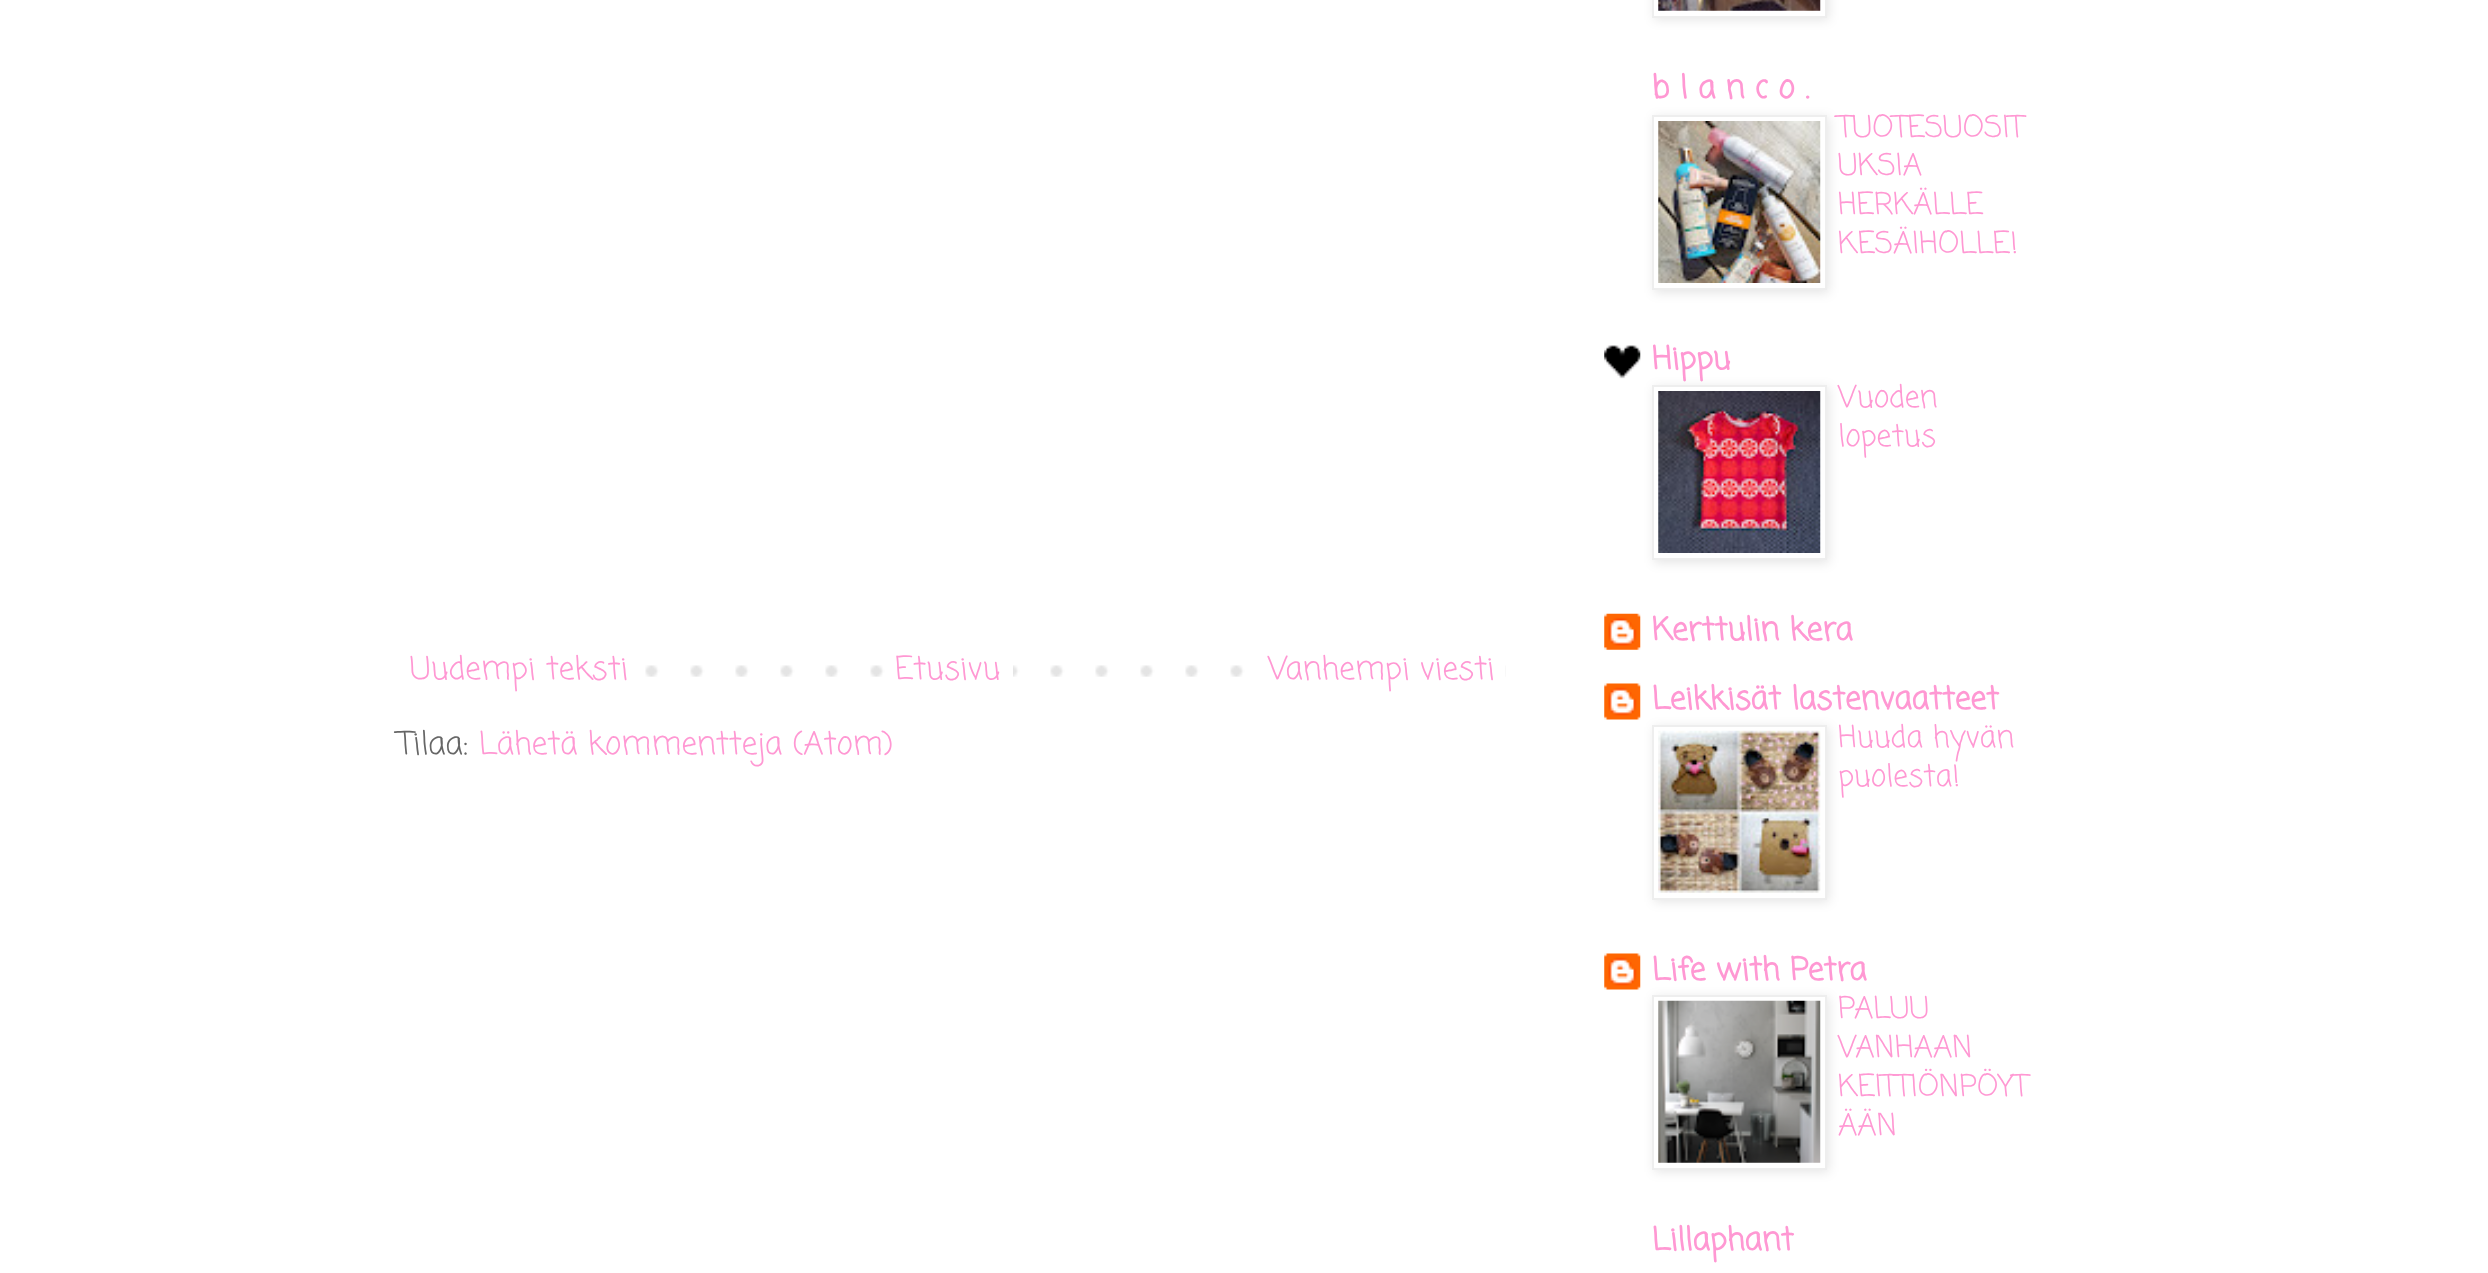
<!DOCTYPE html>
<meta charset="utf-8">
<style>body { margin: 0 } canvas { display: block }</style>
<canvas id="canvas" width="2488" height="1273"></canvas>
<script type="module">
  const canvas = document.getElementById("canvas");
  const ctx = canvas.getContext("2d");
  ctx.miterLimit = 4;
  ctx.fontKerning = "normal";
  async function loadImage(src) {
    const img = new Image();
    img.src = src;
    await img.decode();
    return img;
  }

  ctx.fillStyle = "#ffffff";
  ctx.fillRect(0, 0, 2488, 1273);
  ctx.drawImage(await loadImage("img1.png"), 645, 665, 861, 12);
  ctx.font = "31.5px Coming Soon";
  ctx.fillStyle = "#ff98d3";
  ctx.fillText("Uudempi teksti", 410, 679);
  ctx.fillStyle = "#ffffff";
  ctx.fillRect(915, 665, 98, 12);
  ctx.fillStyle = "#ff98d3";
  ctx.fillText("Etusivu", 895, 679);
  ctx.fillStyle = "#ffffff";
  ctx.fillRect(1275, 665, 230, 12);
  ctx.fillStyle = "#ff98d3";
  ctx.fillText("Vanhempi viesti", 1268, 679);
  ctx.fillStyle = "#666666";
  ctx.fillText("Tilaa:", 398, 754);
  ctx.fillStyle = "#ff98d3";
  ctx.fillText("Lähetä kommentteja (Atom)", 479, 754);
  ctx.save();
  ctx.beginPath();
  ctx.moveTo(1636, 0);
  ctx.lineTo(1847, 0);
  ctx.lineTo(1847, 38);
  ctx.lineTo(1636, 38);
  ctx.closePath();
  ctx.moveTo(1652, -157);
  ctx.lineTo(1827, -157);
  ctx.lineTo(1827, 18);
  ctx.lineTo(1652, 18);
  ctx.closePath();
  ctx.clip("evenodd");
  ctx.fillStyle = "rgba(0, 0, 0, 0.1)";
  ctx.filter = "blur(5.5px)";
  ctx.beginPath();
  ctx.rect(1654, -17, 175, 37);
  ctx.fill();
  ctx.filter = "none";
  ctx.restore();
  ctx.strokeStyle = "#eeeeee";
  ctx.lineWidth = 2;
  ctx.strokeRect(1653, -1, 173, 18);
  ctx.drawImage(await loadImage("img2.png"), 1658, 0, 163, 11);
  ctx.font = "bold 31.5px Coming Soon";
  ctx.fillText("b l a n c o .", 1652, 98);
  ctx.save();
  ctx.beginPath();
  ctx.moveTo(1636, 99);
  ctx.lineTo(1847, 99);
  ctx.lineTo(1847, 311);
  ctx.lineTo(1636, 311);
  ctx.closePath();
  ctx.moveTo(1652, 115);
  ctx.lineTo(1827, 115);
  ctx.lineTo(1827, 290);
  ctx.lineTo(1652, 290);
  ctx.closePath();
  ctx.clip("evenodd");
  ctx.fillStyle = "rgba(0, 0, 0, 0.1)";
  ctx.filter = "blur(5.5px)";
  ctx.beginPath();
  ctx.rect(1654, 117, 175, 176);
  ctx.fill();
  ctx.filter = "none";
  ctx.restore();
  ctx.strokeRect(1653, 116, 173, 173);
  ctx.drawImage(await loadImage("img3.png"), 1658, 121, 163, 162);
  ctx.font = "30px Coming Soon";
  ctx.fillText("TUOTESUOSIT", 1838, 137);
  ctx.fillText("UKSIA", 1838, 175);
  ctx.fillText("HERKÄLLE", 1838, 214);
  ctx.fillText("KESÄIHOLLE!", 1838, 253);
  ctx.drawImage(await loadImage("img4.png"), 1604, 345, 37, 34);
  ctx.font = "bold 31.5px Coming Soon";
  ctx.fillText("Hippu", 1652, 369);
  ctx.save();
  ctx.beginPath();
  ctx.moveTo(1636, 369);
  ctx.lineTo(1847, 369);
  ctx.lineTo(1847, 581);
  ctx.lineTo(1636, 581);
  ctx.closePath();
  ctx.moveTo(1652, 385);
  ctx.lineTo(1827, 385);
  ctx.lineTo(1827, 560);
  ctx.lineTo(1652, 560);
  ctx.closePath();
  ctx.clip("evenodd");
  ctx.fillStyle = "rgba(0, 0, 0, 0.1)";
  ctx.filter = "blur(5.5px)";
  ctx.beginPath();
  ctx.rect(1654, 387, 175, 176);
  ctx.fill();
  ctx.filter = "none";
  ctx.restore();
  ctx.strokeRect(1653, 386, 173, 173);
  ctx.drawImage(await loadImage("img5.png"), 1658, 391, 163, 162);
  ctx.font = "30px Coming Soon";
  ctx.fillText("Vuoden", 1838, 407);
  ctx.fillText("lopetus", 1838, 446);
  ctx.drawImage(await loadImage("img6.png"), 1604, 613, 37, 37);
  ctx.font = "bold 31.5px Coming Soon";
  ctx.fillText("Kerttulin kera", 1652, 640);
  ctx.drawImage(await loadImage("img7.png"), 1604, 683, 37, 37);
  ctx.fillText("Leikkisät lastenvaatteet", 1652, 709);
  ctx.save();
  ctx.beginPath();
  ctx.moveTo(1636, 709);
  ctx.lineTo(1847, 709);
  ctx.lineTo(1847, 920);
  ctx.lineTo(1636, 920);
  ctx.closePath();
  ctx.moveTo(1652, 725);
  ctx.lineTo(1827, 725);
  ctx.lineTo(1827, 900);
  ctx.lineTo(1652, 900);
  ctx.closePath();
  ctx.clip("evenodd");
  ctx.fillStyle = "rgba(0, 0, 0, 0.1)";
  ctx.filter = "blur(5.5px)";
  ctx.beginPath();
  ctx.rect(1654, 727, 175, 175);
  ctx.fill();
  ctx.filter = "none";
  ctx.restore();
  ctx.strokeRect(1653, 726, 173, 173);
  ctx.drawImage(await loadImage("img8.png"), 1658, 730, 163, 163);
  ctx.font = "30px Coming Soon";
  ctx.fillText("Huuda hyvän", 1838, 747);
  ctx.fillText("puolesta!", 1838, 786);
  ctx.drawImage(await loadImage("img7.png"), 1604, 953, 37, 37);
  ctx.font = "bold 31.5px Coming Soon";
  ctx.fillText("Life with Petra", 1652, 980);
  ctx.save();
  ctx.beginPath();
  ctx.moveTo(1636, 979);
  ctx.lineTo(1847, 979);
  ctx.lineTo(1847, 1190);
  ctx.lineTo(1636, 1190);
  ctx.closePath();
  ctx.moveTo(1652, 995);
  ctx.lineTo(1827, 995);
  ctx.lineTo(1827, 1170);
  ctx.lineTo(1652, 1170);
  ctx.closePath();
  ctx.clip("evenodd");
  ctx.fillStyle = "rgba(0, 0, 0, 0.1)";
  ctx.filter = "blur(5.5px)";
  ctx.beginPath();
  ctx.rect(1654, 997, 175, 175);
  ctx.fill();
  ctx.filter = "none";
  ctx.restore();
  ctx.strokeRect(1653, 996, 173, 173);
  ctx.drawImage(await loadImage("img9.png"), 1658, 1000, 163, 163);
  ctx.font = "30px Coming Soon";
  ctx.fillText("PALUU", 1838, 1018);
  ctx.fillText("VANHAAN", 1838, 1057);
  ctx.fillText("KEITTIÖNPÖYT", 1838, 1096);
  ctx.fillText("ÄÄN", 1838, 1135);
  ctx.font = "bold 31.5px Coming Soon";
  ctx.fillText("Lillaphant", 1652, 1250);
</script>
